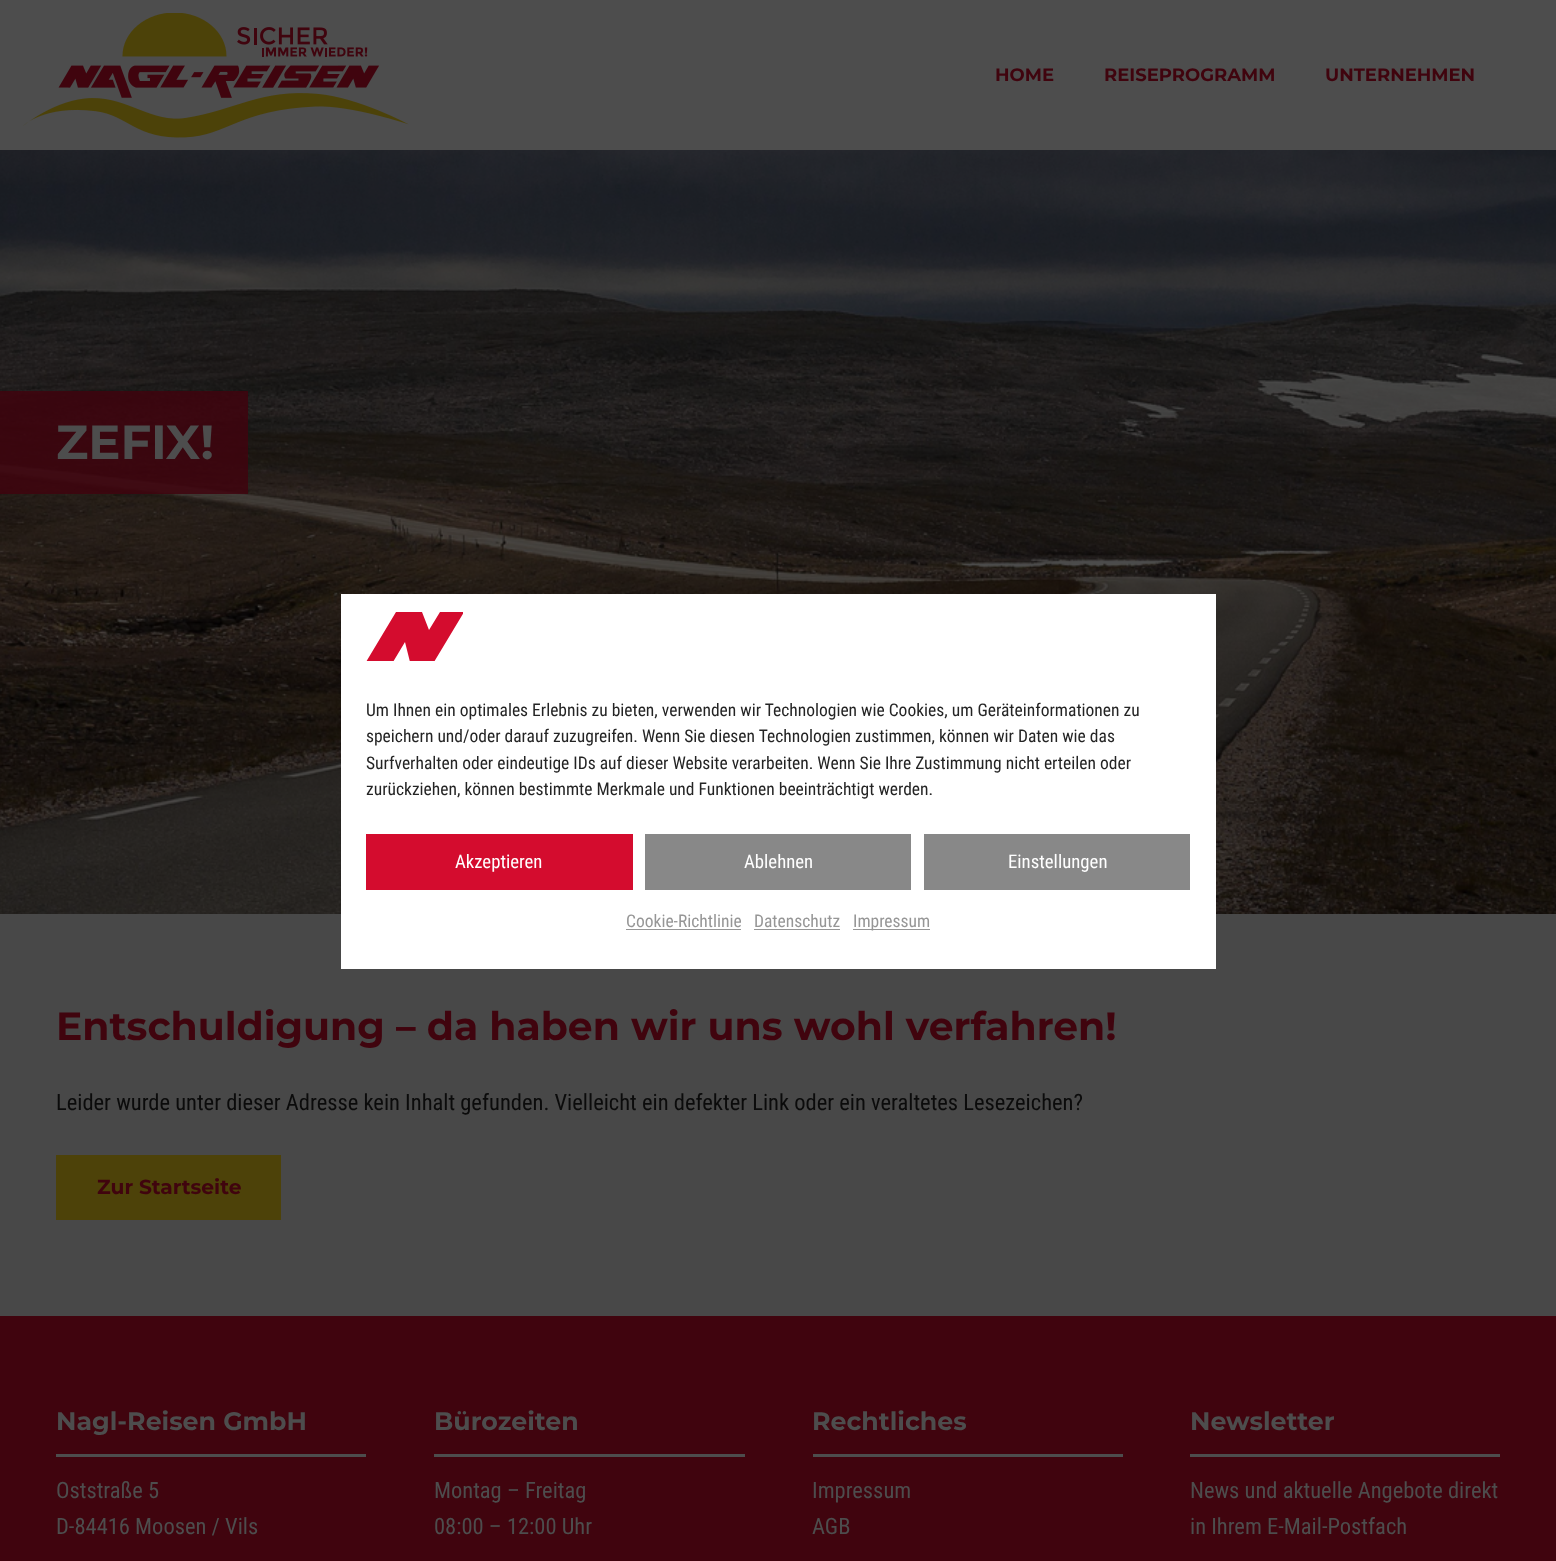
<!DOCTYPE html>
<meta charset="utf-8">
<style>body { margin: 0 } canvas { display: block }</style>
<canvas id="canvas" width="1556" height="1561"></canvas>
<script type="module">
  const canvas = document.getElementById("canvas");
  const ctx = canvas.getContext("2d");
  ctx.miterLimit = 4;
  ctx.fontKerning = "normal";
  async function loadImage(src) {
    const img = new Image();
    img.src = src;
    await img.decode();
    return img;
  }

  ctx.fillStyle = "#484848";
  ctx.fillRect(0, 0, 1556, 1561);
  ctx.fillStyle = "#4d4d4d";
  ctx.fillRect(0, 0, 1556, 150);
  ctx.drawImage(await loadImage("img1.png"), 23, 13, 386, 125);
  ctx.font = "100 18px Montserrat";
  ctx.fillStyle = "#40040e";
  ctx.fillText("HOME", 995, 81);
  ctx.fillText("REISEPROGRAMM", 1104, 81);
  ctx.fillText("UNTERNEHMEN", 1325, 81);
  ctx.drawImage(await loadImage("img2.png"), 0, 150, 1556, 764);
  ctx.fillStyle = "rgba(64, 4, 14, 0.85)";
  ctx.fillRect(56, 391, 192, 103);
  ctx.fillRect(0, 391, 56, 103);
  ctx.font = "100 48px Montserrat";
  ctx.fillStyle = "#4d4d4d";
  ctx.fillText("ZEFIX!", 56, 459);
  ctx.font = "100 39.3px Montserrat";
  ctx.fillStyle = "#40040e";
  ctx.fillText("Entschuldigung – da haben wir uns wohl verfahren!", 56, 1040);
  ctx.font = "22.5px Roboto Condensed";
  ctx.fillStyle = "#0b0b0b";
  ctx.fillText("Leider wurde unter dieser Adresse kein Inhalt gefunden. Vielleicht ein defekter Link oder ein veraltetes Lesezeichen?", 56, 1110);
  ctx.fillStyle = "#4d4209";
  ctx.fillRect(56, 1155, 225, 65);
  ctx.font = "100 20.25px Montserrat";
  ctx.fillStyle = "#40040e";
  ctx.fillText("Zur Startseite", 97, 1194);
  ctx.fillStyle = "#ffffff";
  ctx.fillRect(341, 594, 875, 375);
  ctx.save();
  ctx.beginPath();
  ctx.rect(366, 611, 97, 50);
  ctx.clip();
  ctx.fillStyle = "#d40c2e";
  ctx.beginPath();
  ctx.moveTo(366, 662);
  ctx.lineTo(396, 612);
  ctx.lineTo(422, 612);
  ctx.lineTo(429, 630);
  ctx.lineTo(440, 612);
  ctx.lineTo(464, 612);
  ctx.lineTo(434, 662);
  ctx.lineTo(410, 662);
  ctx.lineTo(405, 642);
  ctx.lineTo(393, 662);
  ctx.lineTo(366, 662);
  ctx.fill();
  ctx.restore();
  ctx.font = "17.5px Roboto Condensed";
  ctx.fillStyle = "#242424";
  ctx.fillText("Um Ihnen ein optimales Erlebnis zu bieten, verwenden wir Technologien wie Cookies, um Geräteinformationen zu", 366, 716);
  ctx.fillText("speichern und/oder darauf zuzugreifen. Wenn Sie diesen Technologien zustimmen, können wir Daten wie das", 366, 742);
  ctx.fillText("Surfverhalten oder eindeutige IDs auf dieser Website verarbeiten. Wenn Sie Ihre Zustimmung nicht erteilen oder", 366, 769);
  ctx.fillText("zurückziehen, können bestimmte Merkmale und Funktionen beeinträchtigt werden.", 366, 795);
  ctx.fillStyle = "#d40c2e";
  ctx.fillRect(366, 834, 267, 56);
  ctx.font = "18.75px Roboto Condensed";
  ctx.fillStyle = "#ffffff";
  ctx.fillText("Akzeptieren", 455, 868);
  ctx.fillStyle = "#888888";
  ctx.fillRect(645, 834, 266, 56);
  ctx.fillStyle = "#ffffff";
  ctx.fillText("Ablehnen", 744, 868);
  ctx.fillStyle = "#888888";
  ctx.fillRect(924, 834, 266, 56);
  ctx.fillStyle = "#ffffff";
  ctx.fillText("Einstellungen", 1008, 868);
  ctx.font = "17.5px Roboto Condensed";
  ctx.fillStyle = "#969696";
  ctx.fillText("Cookie-Richtlinie", 626, 927);
  ctx.fillRect(626, 929, 115, 1);
  ctx.fillText("Datenschutz", 754, 927);
  ctx.fillRect(754, 929, 86, 1);
  ctx.fillRect(853, 929, 77, 1);
  ctx.fillText("Impressum", 853, 927);
  ctx.fillStyle = "#40040e";
  ctx.fillRect(0, 1316, 1556, 245);
  ctx.fillStyle = "#4d4d4d";
  ctx.fillRect(56, 1454, 310, 3);
  ctx.font = "100 25.25px Montserrat";
  ctx.fillText("Nagl-Reisen GmbH", 56, 1430);
  ctx.font = "22.5px Roboto Condensed";
  ctx.fillText("Oststraße 5", 56, 1498);
  ctx.fillText("D-84416 Moosen / Vils", 56, 1534);
  ctx.fillRect(434, 1454, 311, 3);
  ctx.font = "100 25.25px Montserrat";
  ctx.fillText("Bürozeiten", 434, 1430);
  ctx.font = "22.5px Roboto Condensed";
  ctx.fillText("Montag – Freitag", 434, 1498);
  ctx.fillText("08:00 – 12:00 Uhr", 434, 1534);
  ctx.fillRect(813, 1454, 310, 3);
  ctx.font = "100 25.25px Montserrat";
  ctx.fillText("Rechtliches", 812, 1430);
  ctx.font = "22.5px Roboto Condensed";
  ctx.fillText("Impressum", 812, 1498);
  ctx.fillText("AGB", 812, 1534);
  ctx.fillRect(1190, 1454, 310, 3);
  ctx.font = "100 25.25px Montserrat";
  ctx.fillText("Newsletter", 1190, 1430);
  ctx.font = "22.5px Roboto Condensed";
  ctx.fillText("News und aktuelle Angebote direkt", 1190, 1498);
  ctx.fillText("in Ihrem E-Mail-Postfach", 1190, 1534);
</script>
